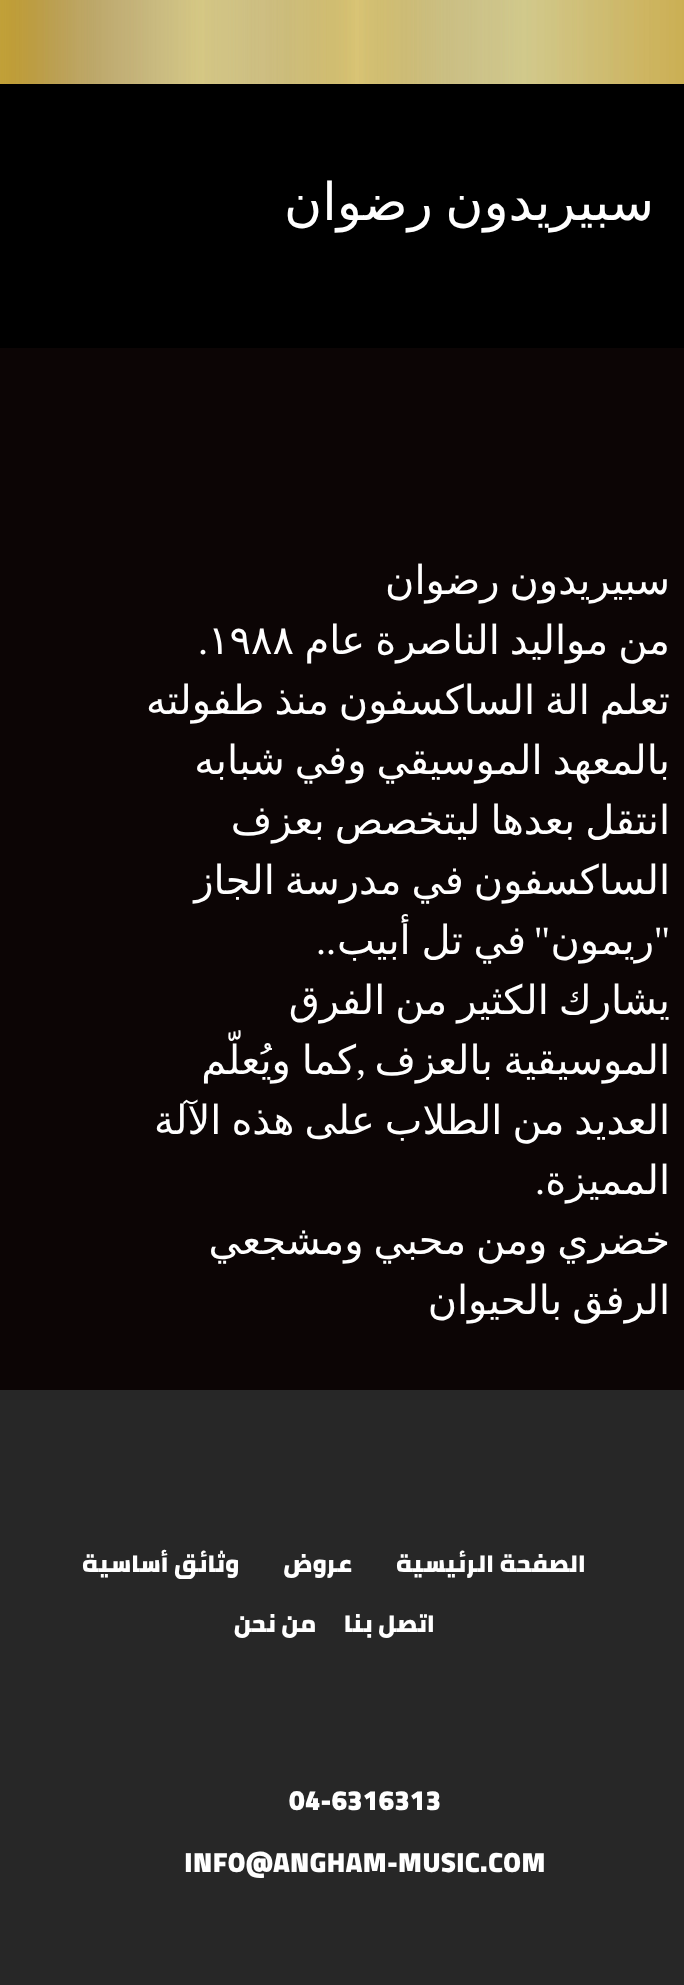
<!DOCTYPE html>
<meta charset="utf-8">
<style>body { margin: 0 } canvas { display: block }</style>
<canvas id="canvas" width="684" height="1985"></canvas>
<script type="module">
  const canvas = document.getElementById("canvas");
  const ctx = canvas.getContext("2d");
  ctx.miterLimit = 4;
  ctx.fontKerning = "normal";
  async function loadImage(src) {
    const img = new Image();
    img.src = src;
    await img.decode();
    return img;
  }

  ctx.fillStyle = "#0c0505";
  ctx.fillRect(0, 0, 684, 1985);
  ctx.drawImage(await loadImage("img1.png"), 0, 0, 684, 84);
  ctx.fillStyle = "#000000";
  ctx.fillRect(0, 84, 684, 264);
  ctx.wordSpacing = "-4px";
  ctx.direction = "rtl";
  ctx.font = "52px DejaVu Sans";
  ctx.fillStyle = "#ffffff";
  ctx.fillText("سبيريدون رضوان", 654, 220);
  ctx.wordSpacing = "-2.75px";
  ctx.font = "40px DejaVu Sans";
  ctx.fillText("سبيريدون رضوان", 670, 594);
  ctx.fillText("من مواليد الناصرة عام", 670, 654);
  ctx.wordSpacing = "0px";
  ctx.direction = "ltr";
  ctx.fillText("١٩٨٨", 208, 654);
  ctx.font = "40px Liberation Serif";
  ctx.fillText(".", 198, 654);
  ctx.wordSpacing = "-2.75px";
  ctx.direction = "rtl";
  ctx.font = "40px DejaVu Sans";
  ctx.fillText("تعلم الة الساكسفون منذ طفولته", 670, 714);
  ctx.fillText("بالمعهد الموسيقي وفي شبابه", 670, 774);
  ctx.fillText("انتقل بعدها ليتخصص بعزف", 670, 834);
  ctx.fillText("الساكسفون في مدرسة الجاز", 670, 894);
  ctx.wordSpacing = "0px";
  ctx.font = "40px Liberation Serif";
  ctx.fillText("\"", 670, 954);
  ctx.fillText("\"", 550, 954);
  ctx.wordSpacing = "-2px";
  ctx.font = "40px DejaVu Sans";
  ctx.fillText("في تل أبيب", 526, 954);
  ctx.wordSpacing = "0px";
  ctx.fillText("ريمون", 654, 954);
  ctx.font = "40px Liberation Serif";
  ctx.fillText("..", 336, 954);
  ctx.wordSpacing = "-2.75px";
  ctx.font = "40px DejaVu Sans";
  ctx.fillText("يشارك الكثير من الفرق", 670, 1014);
  ctx.wordSpacing = "-2px";
  ctx.fillText("الموسيقية بالعزف", 670, 1074);
  ctx.fillText("كما ويُعلّم", 356, 1074);
  ctx.wordSpacing = "0px";
  ctx.font = "40px Liberation Serif";
  ctx.fillText(",", 366, 1074);
  ctx.wordSpacing = "-2.75px";
  ctx.font = "40px DejaVu Sans";
  ctx.fillText("العديد من الطلاب على هذه الآلة", 670, 1134);
  ctx.wordSpacing = "0px";
  ctx.fillText("المميزة", 670, 1194);
  ctx.font = "40px Liberation Serif";
  ctx.fillText(".", 545, 1194);
  ctx.wordSpacing = "-2.75px";
  ctx.font = "40px DejaVu Sans";
  ctx.fillText("خضري ومن محبي ومشجعي", 670, 1254);
  ctx.fillText("الرفق بالحيوان", 670, 1314);
  ctx.fillStyle = "#272727";
  ctx.fillRect(0, 1390, 684, 595);
  ctx.wordSpacing = "0px";
  ctx.font = "900 24px Cairo";
  ctx.fillStyle = "#ffffff";
  ctx.fillText("الصفحة الرئيسية", 586, 1572);
  ctx.fillText("عروض", 352, 1572);
  ctx.fillText("وثائق أساسية", 239, 1572);
  ctx.fillText("اتصل بنا", 435, 1632);
  ctx.fillText("من نحن", 316, 1632);
  ctx.direction = "ltr";
  ctx.font = "900 28px Cairo";
  ctx.fillText("04-6316313", 289, 1810);
  ctx.fillText("INFO@ANGHAM-MUSIC.COM", 184, 1872);
</script>
